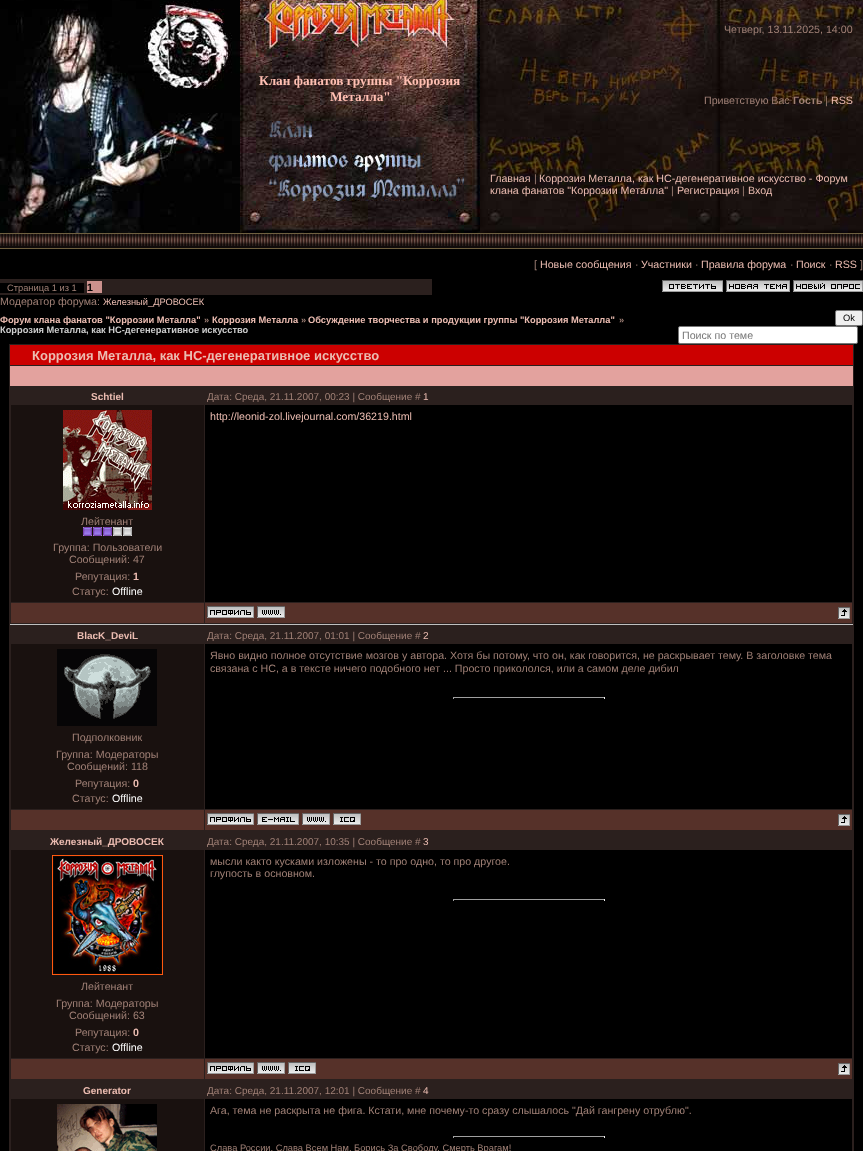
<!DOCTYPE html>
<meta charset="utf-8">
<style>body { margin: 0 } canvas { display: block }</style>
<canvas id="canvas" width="863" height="1151"></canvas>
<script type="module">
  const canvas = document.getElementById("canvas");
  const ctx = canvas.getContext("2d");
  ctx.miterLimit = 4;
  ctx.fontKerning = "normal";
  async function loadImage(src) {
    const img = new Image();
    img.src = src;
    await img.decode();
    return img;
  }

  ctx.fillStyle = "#000000";
  ctx.fillRect(0, 0, 863, 1151);
  ctx.drawImage(await loadImage("img1.png"), 0, 0, 240, 233);
  ctx.drawImage(await loadImage("img2.png"), 240, 0, 240, 233);
  ctx.font = "bold 13.3px Liberation Serif";
  ctx.fillStyle = "#ffbfb2";
  ctx.fillText("Клан фанатов группы \"Коррозия", 259, 85);
  ctx.fillText("Металла\"", 330, 101);
  ctx.drawImage(await loadImage("img3.png"), 480, 0, 383, 233);
  ctx.font = "10.67px Liberation Sans";
  ctx.fillStyle = "#a08076";
  ctx.fillText("Четверг, 13.11.2025, 14:00", 724, 33);
  ctx.fillText("Приветствую Вас", 704, 104);
  ctx.font = "bold 10.67px Liberation Sans";
  ctx.fillText("Гость", 793, 104);
  ctx.font = "10.67px Liberation Sans";
  ctx.fillText("|", 825, 104);
  ctx.fillStyle = "#ebbcb1";
  ctx.fillText("RSS", 831, 104);
  ctx.fillText("Главная", 490, 182);
  ctx.fillStyle = "#a08076";
  ctx.fillText("|", 534, 182);
  ctx.fillStyle = "#ebbcb1";
  ctx.fillText("Коррозия Металла, как НС-дегенеративное искусство - Форум", 539, 182);
  ctx.fillText("клана фанатов \"Коррозии Металла\"", 490, 194);
  ctx.fillStyle = "#a08076";
  ctx.fillText("|", 671, 194);
  ctx.fillStyle = "#ebbcb1";
  ctx.fillText("Регистрация", 677, 194);
  ctx.fillStyle = "#a08076";
  ctx.fillText("|", 742, 194);
  ctx.fillStyle = "#ebbcb1";
  ctx.fillText("Вход", 748, 194);
  ctx.drawImage(await loadImage("img4.png"), 0, 233, 863, 16);
  ctx.fillStyle = "#a08076";
  ctx.fillText("[", 534, 268);
  ctx.fillStyle = "#ebbcb1";
  ctx.fillText("Новые сообщения", 540, 268);
  ctx.fillStyle = "#a08076";
  ctx.fillText("·", 635, 268);
  ctx.fillStyle = "#ebbcb1";
  ctx.fillText("Участники", 641, 268);
  ctx.fillStyle = "#a08076";
  ctx.fillText("·", 695, 268);
  ctx.fillStyle = "#ebbcb1";
  ctx.fillText("Правила форума", 701, 268);
  ctx.fillStyle = "#a08076";
  ctx.fillText("·", 790, 268);
  ctx.fillStyle = "#ebbcb1";
  ctx.fillText("Поиск", 796, 268);
  ctx.fillStyle = "#a08076";
  ctx.fillText("·", 829, 268);
  ctx.fillStyle = "#ebbcb1";
  ctx.fillText("RSS", 835, 268);
  ctx.fillStyle = "#a08076";
  ctx.fillText("]", 860, 268);
  ctx.fillStyle = "#2b201e";
  ctx.fillRect(0, 279, 432, 16);
  ctx.fillStyle = "#000000";
  ctx.fillRect(0, 283, 84, 10);
  ctx.font = "9.3px Liberation Sans";
  ctx.fillStyle = "#a08076";
  ctx.fillText("Страница 1 из 1", 7, 291);
  ctx.fillStyle = "#cb918d";
  ctx.fillRect(87, 281, 15, 12);
  ctx.font = "bold 10.67px Liberation Sans";
  ctx.fillStyle = "#000000";
  ctx.fillText("1", 87, 291);
  ctx.drawImage(await loadImage("img5.png"), 662, 280, 61, 12);
  ctx.drawImage(await loadImage("img6.png"), 726, 280, 64, 12);
  ctx.drawImage(await loadImage("img7.png"), 793, 280, 70, 12);
  ctx.font = "10.67px Liberation Sans";
  ctx.fillStyle = "#a08076";
  ctx.fillText("Модератор форума:", 0, 305);
  ctx.font = "9.3px Liberation Sans";
  ctx.fillStyle = "#ebbcb1";
  ctx.fillText("Железный_ДРОВОСЕК", 103, 305);
  ctx.font = "bold 9.3px Liberation Sans";
  ctx.fillText("Форум клана фанатов \"Коррозии Металла\"", 0, 323);
  ctx.fillStyle = "#a08076";
  ctx.fillText("»", 204, 323);
  ctx.fillStyle = "#ebbcb1";
  ctx.fillText("Коррозия Металла", 212, 323);
  ctx.fillStyle = "#a08076";
  ctx.fillText("»", 301, 323);
  ctx.fillStyle = "#ebbcb1";
  ctx.fillText("Обсуждение творчества и продукции группы \"Коррозия Металла\"", 308, 323);
  ctx.fillStyle = "#a08076";
  ctx.fillText("»", 619, 323);
  ctx.fillStyle = "#cccccc";
  ctx.fillText("Коррозия Металла, как НС-дегенеративное искусство", 0, 333);
  ctx.fillStyle = "#efefef";
  ctx.beginPath();
  ctx.roundRect(835.5, 310.5, 27, 15, 1.5);
  ctx.fill();
  ctx.strokeStyle = "#767676";
  ctx.stroke();
  ctx.font = "9.3px Liberation Sans";
  ctx.fillStyle = "#000000";
  ctx.fillText("Ok", 843, 321);
  ctx.fillStyle = "#ffffff";
  ctx.beginPath();
  ctx.roundRect(678.5, 326.5, 179, 17, 1.5);
  ctx.fill();
  ctx.stroke();
  ctx.font = "10.67px Liberation Sans";
  ctx.fillStyle = "#757575";
  ctx.fillText("Поиск по теме", 682, 339);
  ctx.fillStyle = "#2b201e";
  ctx.fillRect(9, 344, 845, 807);
  ctx.fillStyle = "#cc0000";
  ctx.fillRect(10, 345, 843, 20);
  ctx.font = "bold 13px Liberation Sans";
  ctx.fillStyle = "#ebbcb1";
  ctx.fillText("Коррозия Металла, как НС-дегенеративное искусство", 32, 360);
  ctx.fillStyle = "#e3a29e";
  ctx.fillRect(10, 366, 843, 20);
  ctx.fillStyle = "#c0c0c0";
  ctx.fillRect(10, 624, 843, 1);
  ctx.font = "bold 10px Liberation Sans";
  ctx.fillStyle = "#ebbcb1";
  ctx.fillText("Schtiel", 91, 400);
  ctx.font = "10px Liberation Sans";
  ctx.fillStyle = "#a08076";
  ctx.fillText("Дата: Среда, 21.11.2007, 00:23 | Сообщение #", 207, 400);
  ctx.fillStyle = "#ebbcb1";
  ctx.fillText("1", 423, 400);
  ctx.fillStyle = "#000000";
  ctx.fillRect(205, 405, 647, 197);
  ctx.font = "10.67px Liberation Sans";
  ctx.fillStyle = "#ebbcb1";
  ctx.fillText("http://leonid-zol.livejournal.com/36219.html", 210, 420);
  ctx.fillStyle = "#19110f";
  ctx.fillRect(11, 405, 193, 197);
  ctx.drawImage(await loadImage("img8.png"), 63, 410, 89, 100);
  ctx.fillStyle = "#a08076";
  ctx.fillText("Лейтенант", 81, 525);
  ctx.drawImage(await loadImage("img9.png"), 83, 527, 49, 9);
  ctx.fillText("Группа: Пользователи", 53, 551);
  ctx.fillText("Сообщений: 47", 69, 563);
  ctx.fillText("Репутация:", 75, 580);
  ctx.font = "bold 10.67px Liberation Sans";
  ctx.fillStyle = "#ebbcb1";
  ctx.fillText("1", 133, 580);
  ctx.font = "10.67px Liberation Sans";
  ctx.fillStyle = "#a08076";
  ctx.fillText("Статус:", 72, 595);
  ctx.fillStyle = "#ffffff";
  ctx.fillText("Offline", 112, 595);
  ctx.fillStyle = "#563129";
  ctx.fillRect(11, 603, 193, 20);
  ctx.fillRect(205, 603, 647, 20);
  ctx.drawImage(await loadImage("img10.png"), 207, 606, 47, 12);
  ctx.drawImage(await loadImage("img11.png"), 257, 606, 28, 12);
  ctx.drawImage(await loadImage("img12.png"), 838, 607, 12, 12);
  ctx.font = "bold 10px Liberation Sans";
  ctx.fillStyle = "#ebbcb1";
  ctx.fillText("BlacK_DeviL", 77, 639);
  ctx.font = "10px Liberation Sans";
  ctx.fillStyle = "#a08076";
  ctx.fillText("Дата: Среда, 21.11.2007, 01:01 | Сообщение #", 207, 639);
  ctx.fillStyle = "#ebbcb1";
  ctx.fillText("2", 423, 639);
  ctx.fillStyle = "#000000";
  ctx.fillRect(205, 644, 647, 165);
  ctx.font = "10.67px Liberation Sans";
  ctx.fillStyle = "#a08076";
  ctx.fillText("Явно видно полное отсутствие мозгов у автора. Хотя бы потому, что он, как говорится, не раскрывает тему. В заголовке тема", 210, 659);
  ctx.fillText("связана с НС, а в тексте ничего подобного нет ... Просто прикололся, или а самом деле дибил", 210, 672);
  ctx.fillStyle = "#9f9f9f";
  ctx.fillRect(453, 697, 152, 1);
  ctx.fillStyle = "#eeeeee";
  ctx.fillRect(604, 697, 1, 2);
  ctx.fillStyle = "#9f9f9f";
  ctx.fillRect(453, 697, 1, 2);
  ctx.fillStyle = "#19110f";
  ctx.fillRect(11, 644, 193, 165);
  ctx.drawImage(await loadImage("img13.png"), 57, 649, 100, 77);
  ctx.fillStyle = "#a08076";
  ctx.fillText("Подполковник", 72, 741);
  ctx.fillText("Группа: Модераторы", 56, 758);
  ctx.fillText("Сообщений: 118", 67, 770);
  ctx.fillText("Репутация:", 75, 787);
  ctx.font = "bold 10.67px Liberation Sans";
  ctx.fillStyle = "#ebbcb1";
  ctx.fillText("0", 133, 787);
  ctx.font = "10.67px Liberation Sans";
  ctx.fillStyle = "#a08076";
  ctx.fillText("Статус:", 72, 802);
  ctx.fillStyle = "#ffffff";
  ctx.fillText("Offline", 112, 802);
  ctx.fillStyle = "#563129";
  ctx.fillRect(11, 810, 193, 20);
  ctx.fillRect(205, 810, 647, 20);
  ctx.drawImage(await loadImage("img10.png"), 207, 813, 47, 12);
  ctx.drawImage(await loadImage("img14.png"), 257, 813, 42, 12);
  ctx.drawImage(await loadImage("img11.png"), 302, 813, 28, 12);
  ctx.drawImage(await loadImage("img15.png"), 333, 813, 28, 12);
  ctx.drawImage(await loadImage("img12.png"), 838, 814, 12, 12);
  ctx.font = "bold 10px Liberation Sans";
  ctx.fillStyle = "#ebbcb1";
  ctx.fillText("Железный_ДРОВОСЕК", 50, 845);
  ctx.font = "10px Liberation Sans";
  ctx.fillStyle = "#a08076";
  ctx.fillText("Дата: Среда, 21.11.2007, 10:35 | Сообщение #", 207, 845);
  ctx.fillStyle = "#ebbcb1";
  ctx.fillText("3", 423, 845);
  ctx.fillStyle = "#000000";
  ctx.fillRect(205, 850, 647, 208);
  ctx.font = "10.67px Liberation Sans";
  ctx.fillStyle = "#a08076";
  ctx.fillText("мысли както кусками изложены - то про одно, то про другое.", 210, 865);
  ctx.fillText("глупость в основном.", 210, 877);
  ctx.fillStyle = "#9f9f9f";
  ctx.fillRect(453, 899, 152, 1);
  ctx.fillStyle = "#eeeeee";
  ctx.fillRect(604, 899, 1, 2);
  ctx.fillStyle = "#9f9f9f";
  ctx.fillRect(453, 899, 1, 2);
  ctx.fillStyle = "#19110f";
  ctx.fillRect(11, 850, 193, 208);
  ctx.drawImage(await loadImage("img16.png"), 52, 855, 111, 120);
  ctx.fillStyle = "#a08076";
  ctx.fillText("Лейтенант", 81, 990);
  ctx.fillText("Группа: Модераторы", 56, 1007);
  ctx.fillText("Сообщений: 63", 69, 1019);
  ctx.fillText("Репутация:", 75, 1036);
  ctx.font = "bold 10.67px Liberation Sans";
  ctx.fillStyle = "#ebbcb1";
  ctx.fillText("0", 133, 1036);
  ctx.font = "10.67px Liberation Sans";
  ctx.fillStyle = "#a08076";
  ctx.fillText("Статус:", 72, 1051);
  ctx.fillStyle = "#ffffff";
  ctx.fillText("Offline", 112, 1051);
  ctx.fillStyle = "#563129";
  ctx.fillRect(11, 1059, 193, 20);
  ctx.fillRect(205, 1059, 647, 20);
  ctx.drawImage(await loadImage("img10.png"), 207, 1062, 47, 12);
  ctx.drawImage(await loadImage("img11.png"), 257, 1062, 28, 12);
  ctx.drawImage(await loadImage("img15.png"), 288, 1062, 28, 12);
  ctx.drawImage(await loadImage("img12.png"), 838, 1063, 12, 12);
  ctx.font = "bold 10px Liberation Sans";
  ctx.fillStyle = "#ebbcb1";
  ctx.fillText("Generator", 83, 1094);
  ctx.font = "10px Liberation Sans";
  ctx.fillStyle = "#a08076";
  ctx.fillText("Дата: Среда, 21.11.2007, 12:01 | Сообщение #", 207, 1094);
  ctx.fillStyle = "#ebbcb1";
  ctx.fillText("4", 423, 1094);
  ctx.fillStyle = "#19110f";
  ctx.fillRect(11, 1099, 193, 52);
  ctx.drawImage(await loadImage("img17.png"), 57, 1104, 100, 47);
  ctx.fillStyle = "#000000";
  ctx.fillRect(205, 1099, 647, 52);
  ctx.font = "10.67px Liberation Sans";
  ctx.fillStyle = "#a08076";
  ctx.fillText("Ага, тема не раскрыта не фига. Кстати, мне почему-то сразу слышалось \"Дай гангрену отрублю\".", 210, 1114);
  ctx.fillStyle = "#9f9f9f";
  ctx.fillRect(453, 1136, 152, 1);
  ctx.fillStyle = "#eeeeee";
  ctx.fillRect(604, 1136, 1, 2);
  ctx.fillStyle = "#9f9f9f";
  ctx.fillRect(453, 1136, 1, 2);
  ctx.font = "9.3px Liberation Sans";
  ctx.fillStyle = "#a08076";
  ctx.fillText("Слава России, Слава Всем Нам, Борись За Свободу, Смерть Врагам!", 210, 1151);
</script>
